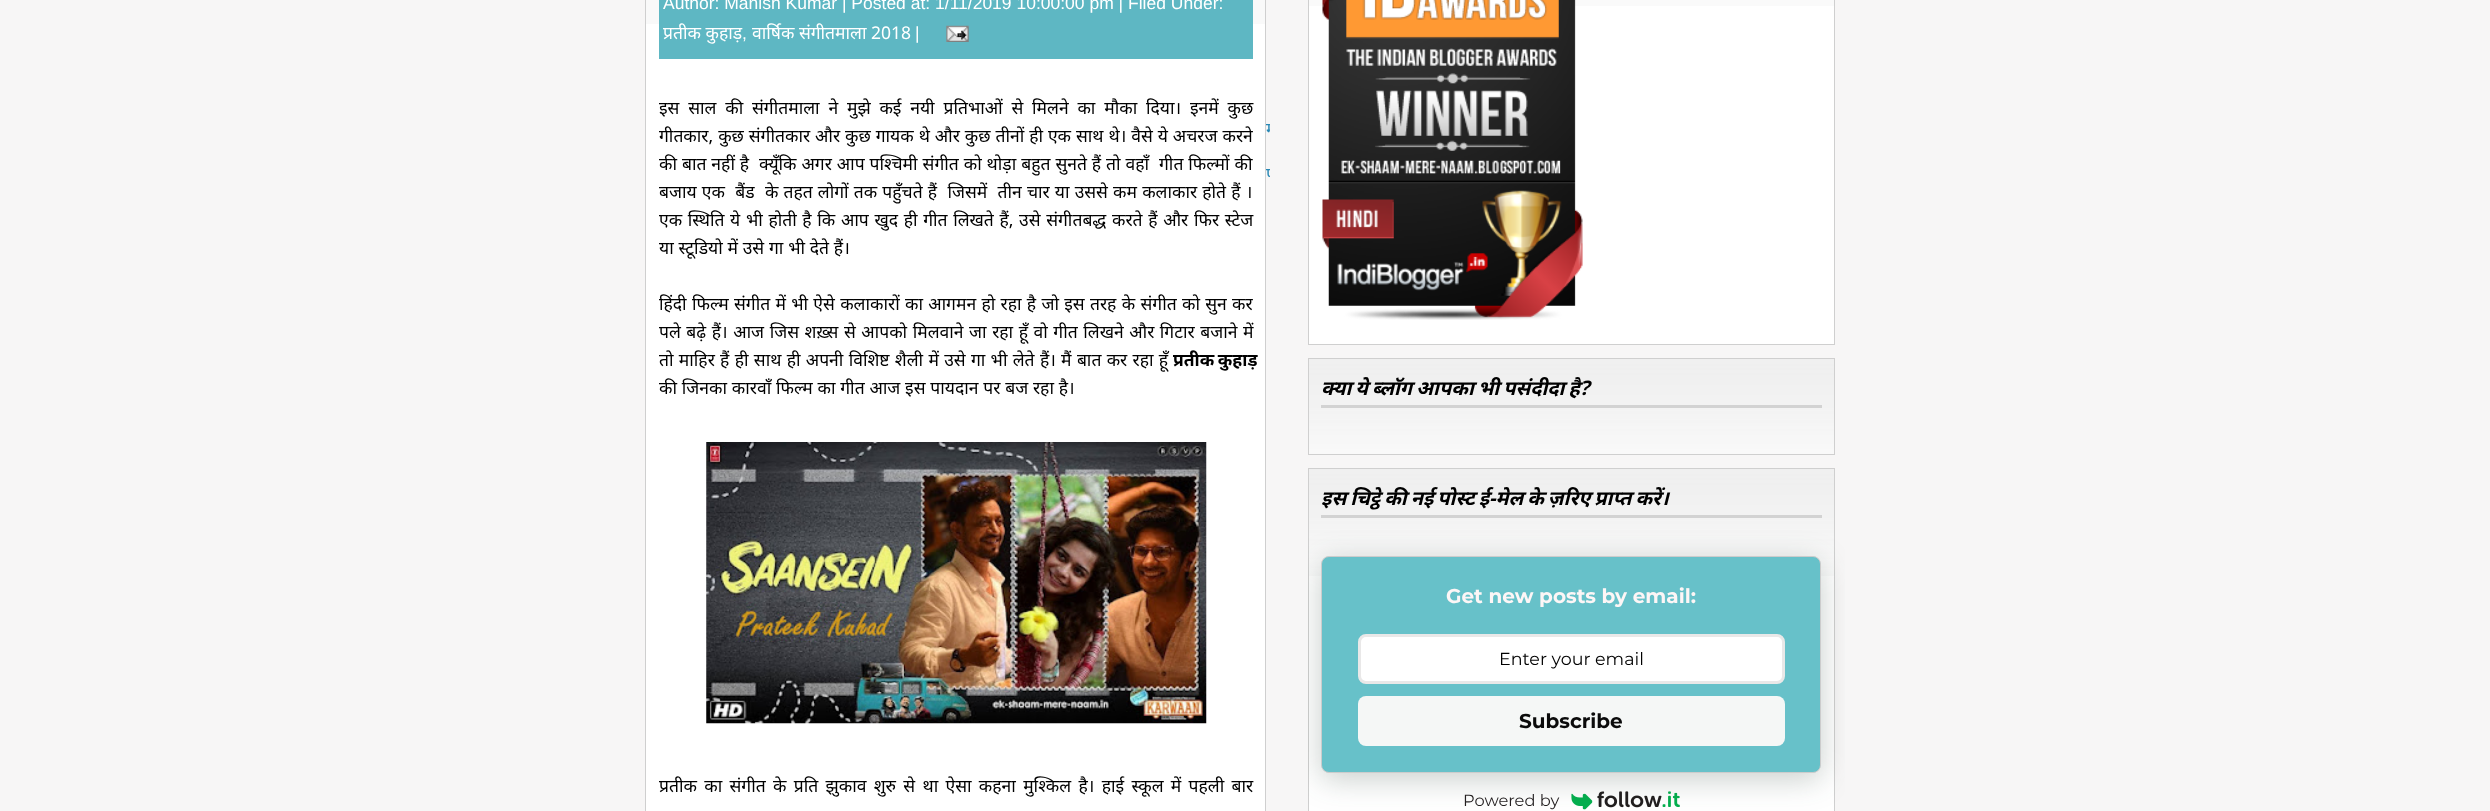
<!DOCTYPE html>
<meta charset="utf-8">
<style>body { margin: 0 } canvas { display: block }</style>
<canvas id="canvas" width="2490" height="811"></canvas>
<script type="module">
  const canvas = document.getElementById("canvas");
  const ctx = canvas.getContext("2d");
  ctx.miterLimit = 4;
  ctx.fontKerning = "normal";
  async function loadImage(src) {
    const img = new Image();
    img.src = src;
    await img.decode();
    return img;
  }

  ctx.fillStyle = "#f7f6f6";
  ctx.fillRect(0, 0, 2490, 811);
  ctx.fillStyle = "#ffffff";
  ctx.fillRect(646, 24, 619, 787);
  ctx.fillStyle = "#f9f9f9";
  ctx.fillRect(646, 0, 619, 24);
  ctx.strokeStyle = "#cfcfcf";
  ctx.strokeRect(645.5, -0.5, 620, 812);
  ctx.fillStyle = "#5eb7c3";
  ctx.fillRect(659, 0, 594, 59);
  ctx.font = "17.5px Liberation Sans";
  ctx.fillStyle = "#ffffff";
  ctx.fillText("Author: Manish Kumar | Posted at: 1/11/2019 10:00:00 pm | Filed Under:", 663, 9);
  ctx.font = "17.5px Noto Sans";
  ctx.fillText("प्रतीक कुहाड़", 663, 39);
  ctx.font = "17.5px Liberation Sans";
  ctx.fillText(",", 742, 39);
  ctx.font = "17.5px Noto Sans";
  ctx.fillText("वार्षिक संगीतमाला 2018", 752, 39);
  ctx.font = "17.5px Liberation Sans";
  ctx.fillText("|", 915, 39);
  ctx.drawImage(await loadImage("img1.png"), 946, 25, 23, 17);
  ctx.wordSpacing = "4.25px";
  ctx.font = "17.5px Noto Sans";
  ctx.fillStyle = "#000000";
  ctx.fillText("इस साल की संगीतमाला ने मुझे कई नयी प्रतिभाओं से मिलने का मौका दिया। इनमें कुछ", 659, 114);
  ctx.wordSpacing = "0.4px";
  ctx.fillText("गीतकार, कुछ संगीतकार और कुछ गायक थे और कुछ तीनों ही एक साथ थे। वैसे ये अचरज करने", 659, 142);
  ctx.fillText("की बात नहीं है  क्यूँकि अगर आप पश्चिमी संगीत को थोड़ा बहुत सुनते हैं तो वहाँ  गीत फिल्मों की", 659, 170);
  ctx.wordSpacing = "0.6px";
  ctx.fillText("बजाय एक  बैंड  के तहत लोगों तक पहुँचते हैं  जिसमें  तीन चार या उससे कम कलाकार होते हैं ।", 659, 198);
  ctx.wordSpacing = "1.1px";
  ctx.fillText("एक स्थिति ये भी होती है कि आप खुद ही गीत लिखते हैं, उसे संगीतबद्ध करते हैं और फिर स्टेज", 659, 226);
  ctx.wordSpacing = "0.25px";
  ctx.fillText("या स्टूडियो में उसे गा भी देते हैं।", 659, 254);
  ctx.wordSpacing = "0.75px";
  ctx.fillText("हिंदी फिल्म संगीत में भी ऐसे कलाकारों का आगमन हो रहा है जो इस तरह के संगीत को सुन कर", 659, 310);
  ctx.wordSpacing = "1px";
  ctx.fillText("पले बढ़े हैं। आज जिस शख़्स से आपको मिलवाने जा रहा हूँ वो गीत लिखने और गिटार बजाने में", 659, 338);
  ctx.wordSpacing = "0.75px";
  ctx.fillText("तो माहिर हैं ही साथ ही अपनी विशिष्ट शैली में उसे गा भी लेते हैं। मैं बात कर रहा हूँ", 659, 366);
  ctx.wordSpacing = "-1px";
  ctx.font = "bold 17.5px Noto Sans";
  ctx.fillText("प्रतीक कुहाड़", 1173, 366);
  ctx.wordSpacing = "0.25px";
  ctx.font = "17.5px Noto Sans";
  ctx.fillText("की जिनका कारवाँ फिल्म का गीत आज इस पायदान पर बज रहा है।", 659, 394);
  ctx.drawImage(await loadImage("img2.png"), 706, 442, 501, 282);
  ctx.wordSpacing = "2.75px";
  ctx.fillText("प्रतीक का संगीत के प्रति झुकाव शुरु से था ऐसा कहना मुश्किल है। हाई स्कूल में पहली बार", 659, 792);
  ctx.save();
  ctx.beginPath();
  ctx.rect(1266, 0, 4, 208);
  ctx.clip();
  ctx.wordSpacing = "0px";
  ctx.fillStyle = "#2888b5";
  ctx.fillText("म", 1266, 135);
  ctx.fillText("प", 1266, 180);
  ctx.restore();
  ctx.fillStyle = "#ffffff";
  ctx.fillRect(1309, 6, 525, 338);
  ctx.fillStyle = "#fafafa";
  ctx.fillRect(1308, 0, 527, 6);
  ctx.strokeRect(1308.5, -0.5, 526, 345);
  ctx.drawImage(await loadImage("img3.png"), 1322, 0, 261, 320);
  ctx.drawImage(await loadImage("img4.png"), 1309, 359, 525, 95);
  ctx.strokeRect(1308.5, 358.5, 526, 96);
  ctx.fillStyle = "#d2d2d2";
  ctx.fillRect(1321, 405, 501, 3);
  ctx.wordSpacing = "-1.25px";
  ctx.font = "italic bold 20px Noto Sans";
  ctx.fillStyle = "#000000";
  ctx.fillText("क्या ये ब्लॉग आपका भी पसंदीदा है?", 1321, 395);
  ctx.fillStyle = "#ffffff";
  ctx.fillRect(1309, 576, 525, 235);
  ctx.drawImage(await loadImage("img5.png"), 1309, 469, 525, 107);
  ctx.strokeRect(1308.5, 468.5, 526, 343);
  ctx.fillStyle = "#d2d2d2";
  ctx.fillRect(1321, 515, 501, 3);
  ctx.fillStyle = "#000000";
  ctx.fillText("इस चिट्ठे की नई पोस्ट ई-मेल के ज़रिए प्राप्त करें।", 1321, 505);
  ctx.drawImage(await loadImage("img6.png"), 1571, 791, 109, 19);
  ctx.save();
  ctx.beginPath();
  ctx.rect(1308, 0, 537, 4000);
  ctx.clip();
  ctx.fillStyle = "rgba(34, 60, 47, 0.25)";
  ctx.filter = "blur(15.5px)";
  ctx.beginPath();
  ctx.roundRect(1321, 563, 500, 216, 8);
  ctx.fill();
  ctx.filter = "none";
  ctx.restore();
  ctx.fillStyle = "#67c1c9";
  ctx.beginPath();
  ctx.roundRect(1321.5, 556.5, 499, 216, 7.5);
  ctx.fill();
  ctx.strokeStyle = "#cccccc";
  ctx.stroke();
  ctx.wordSpacing = "0px";
  ctx.font = "100 20px 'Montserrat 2'";
  ctx.fillStyle = "#fdf6f6";
  ctx.fillText("Get new posts by email:", 1446, 603);
  ctx.fillStyle = "#ffffff";
  ctx.beginPath();
  ctx.roundRect(1359.5, 635.5, 424, 47, 6.5);
  ctx.fill();
  ctx.strokeStyle = "#e9e8e8";
  ctx.lineWidth = 3;
  ctx.stroke();
  ctx.font = "100 17.5px Montserrat";
  ctx.fillStyle = "#000000";
  ctx.fillText("Enter your email", 1499, 665);
  ctx.fillStyle = "#f5f7f6";
  ctx.beginPath();
  ctx.roundRect(1358, 696, 427, 50, 8);
  ctx.fill();
  ctx.font = "100 20px 'Montserrat 2'";
  ctx.fillStyle = "#0b0b0b";
  ctx.fillText("Subscribe", 1519, 728);
  ctx.font = "100 16.25px Montserrat";
  ctx.fillStyle = "#231f20";
  ctx.fillText("Powered by", 1463, 806);
</script>
